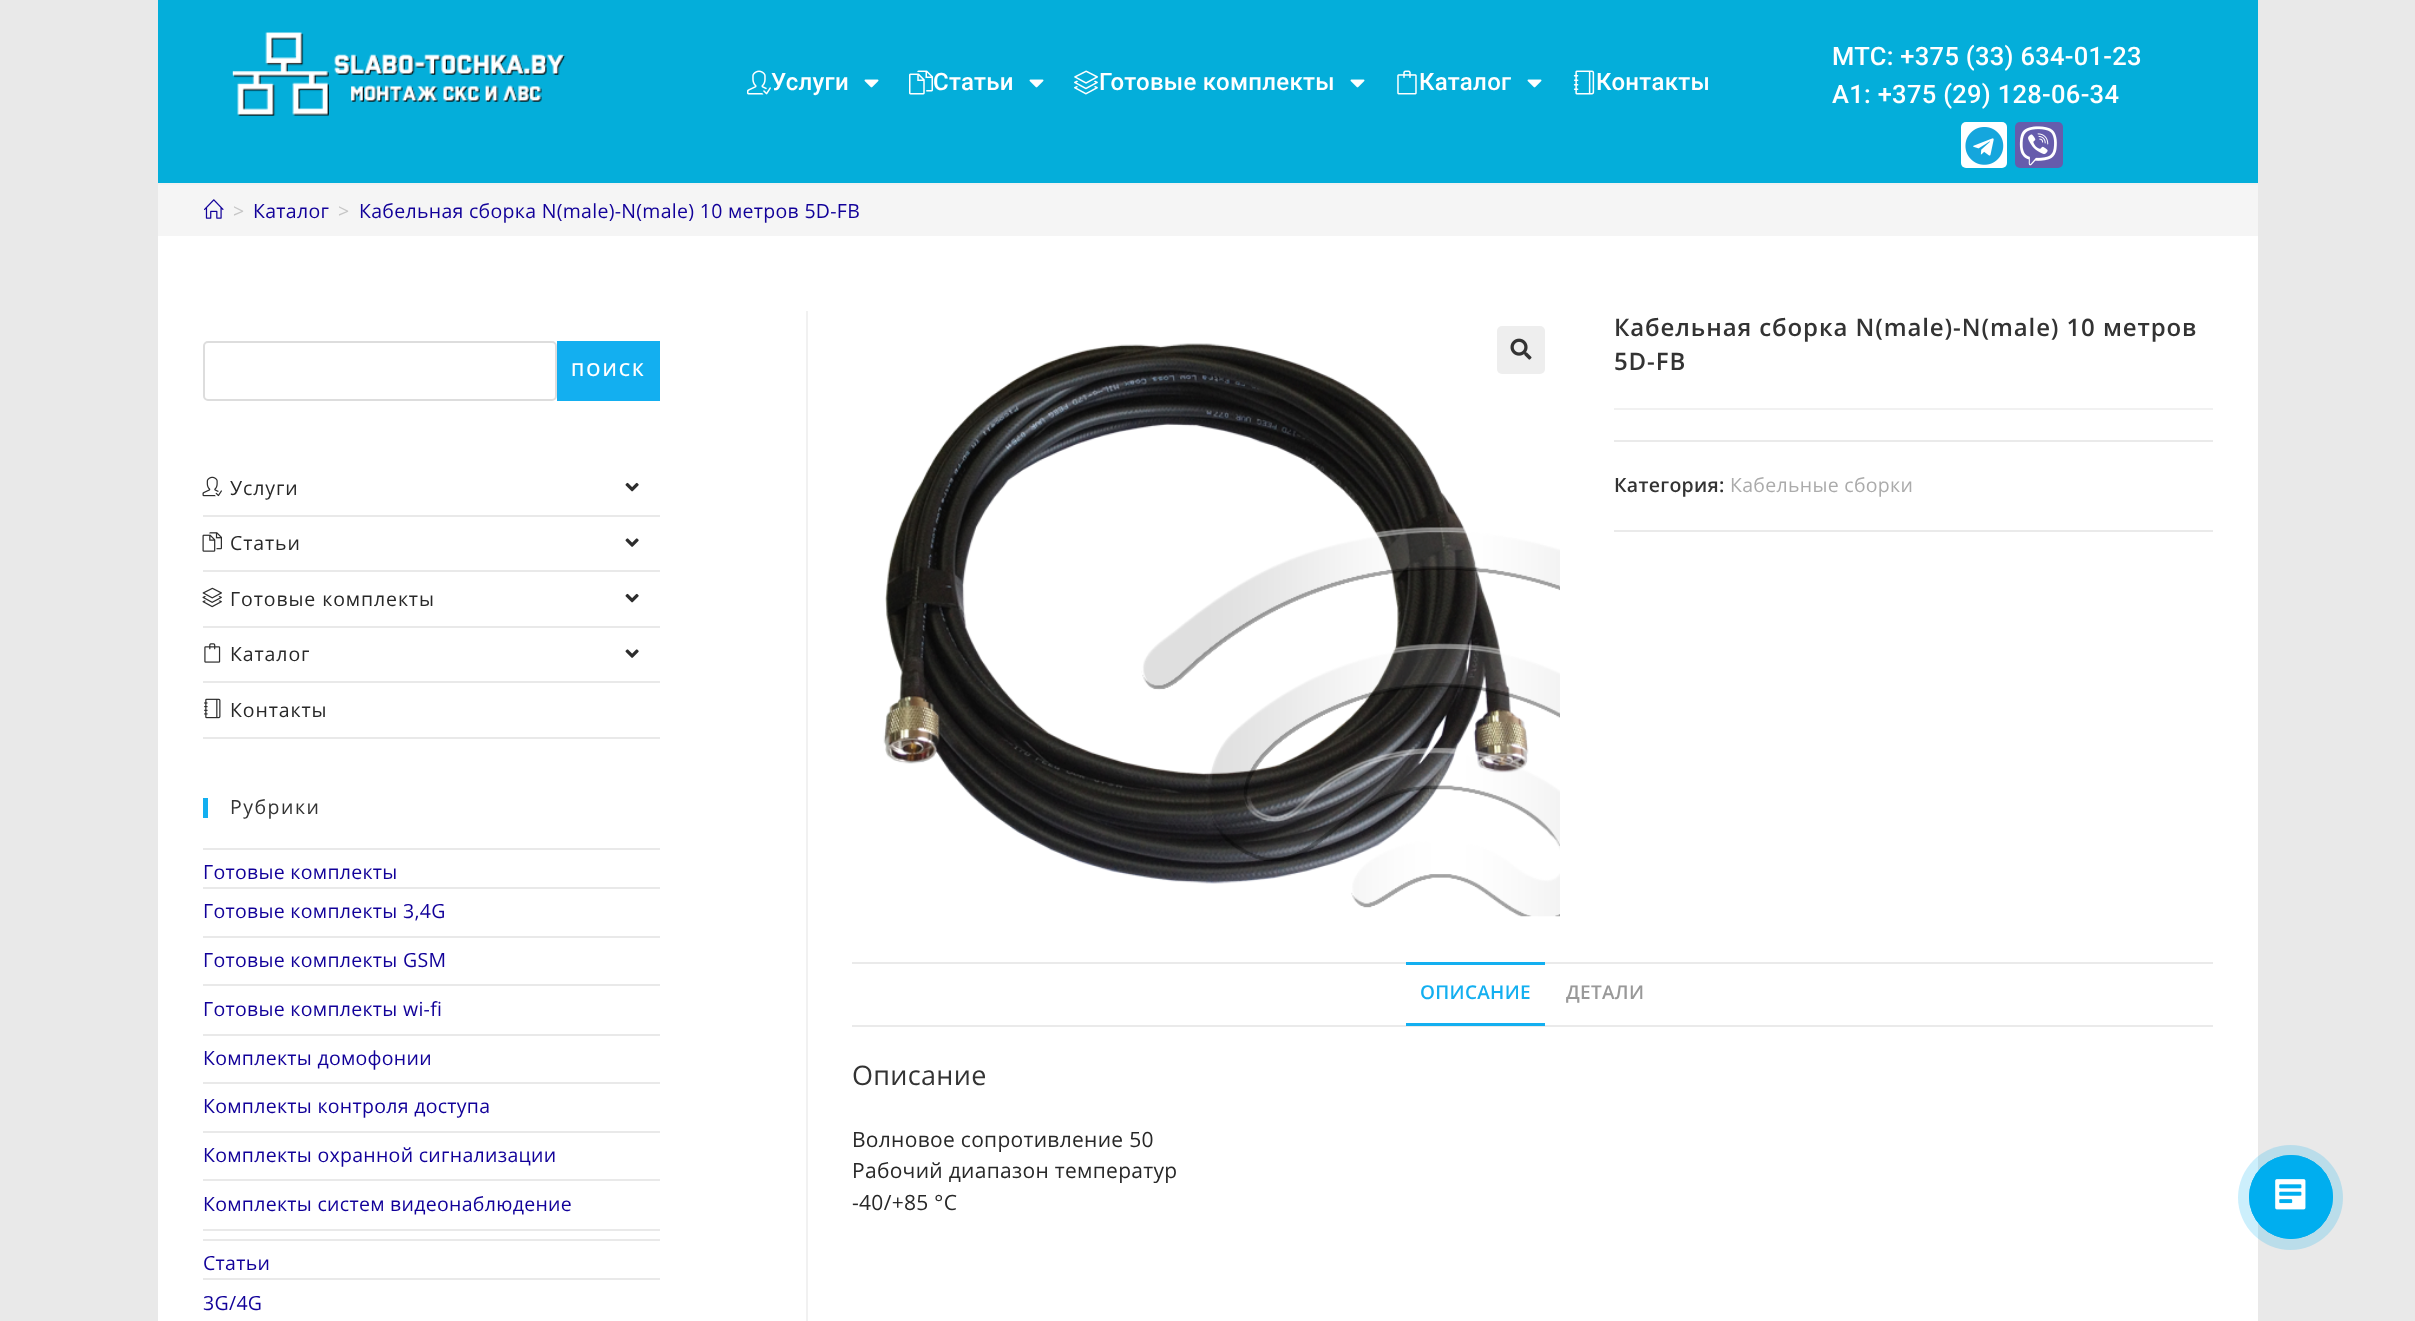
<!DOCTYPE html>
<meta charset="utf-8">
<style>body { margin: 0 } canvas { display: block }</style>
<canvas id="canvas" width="2415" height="1321"></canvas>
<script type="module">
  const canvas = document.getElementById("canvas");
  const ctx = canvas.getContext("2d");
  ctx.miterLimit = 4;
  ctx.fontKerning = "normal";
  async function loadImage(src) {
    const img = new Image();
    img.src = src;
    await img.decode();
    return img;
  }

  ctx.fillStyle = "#e9e9e9";
  ctx.fillRect(0, 0, 2415, 1321);
  ctx.fillStyle = "#ffffff";
  ctx.fillRect(158, 236, 2100, 1085);
  ctx.fillStyle = "#04aeda";
  ctx.fillRect(158, 0, 2100, 183);
  ctx.fillStyle = "#f1f1f1";
  ctx.fillRect(158, 183, 2100, 2);
  ctx.drawImage(await loadImage("img1.png"), 232, 32, 334, 84);
  ctx.drawImage(await loadImage("img2.png"), 747, 70, 24, 25);
  ctx.letterSpacing = "0.3px";
  ctx.font = "500 24px Roboto";
  ctx.fillStyle = "#ffffff";
  ctx.fillText("Услуги", 771, 90);
  ctx.drawImage(await loadImage("img3.png"), 864, 79, 15, 9);
  ctx.drawImage(await loadImage("img4.png"), 909, 70, 24, 25);
  ctx.fillText("Статьи", 933, 90);
  ctx.drawImage(await loadImage("img3.png"), 1029, 79, 15, 9);
  ctx.drawImage(await loadImage("img5.png"), 1074, 70, 24, 25);
  ctx.fillText("Готовые комплекты", 1099, 90);
  ctx.drawImage(await loadImage("img3.png"), 1350, 79, 15, 9);
  ctx.drawImage(await loadImage("img6.png"), 1397, 70, 20, 25);
  ctx.fillText("Каталог", 1419, 90);
  ctx.drawImage(await loadImage("img3.png"), 1527, 79, 15, 9);
  ctx.drawImage(await loadImage("img7.png"), 1573, 70, 22, 25);
  ctx.fillText("Контакты", 1596, 90);
  ctx.font = "500 25.5px Roboto";
  ctx.fillText("МТС: +375 (33) 634-01-23", 1832, 65);
  ctx.fillText("А1: +375 (29) 128-06-34", 1832, 103);
  ctx.beginPath();
  ctx.roundRect(1961, 122, 46, 46, 5);
  ctx.fill();
  ctx.drawImage(await loadImage("img8.png"), 1965, 127, 39, 38);
  ctx.fillStyle = "#665cac";
  ctx.beginPath();
  ctx.roundRect(2015, 122, 48, 46, 5);
  ctx.fill();
  ctx.drawImage(await loadImage("img9.png"), 2019, 126, 38, 40);
  ctx.fillStyle = "#f5f5f5";
  ctx.fillRect(158, 185, 2100, 51);
  ctx.drawImage(await loadImage("img10.png"), 204, 199, 20, 20);
  ctx.font = "19.5px Open Sans";
  ctx.fillStyle = "#c6c6c6";
  ctx.fillText(">", 233, 218);
  ctx.fillStyle = "#110099";
  ctx.fillText("Каталог", 253, 218);
  ctx.fillStyle = "#c6c6c6";
  ctx.fillText(">", 338, 218);
  ctx.fillStyle = "#110099";
  ctx.fillText("Кабельная сборка N(male)-N(male) 10 метров 5D-FB", 359, 218);
  ctx.beginPath();
  ctx.roundRect(204, 342, 352, 58, 4);
  ctx.strokeStyle = "#dddddd";
  ctx.lineWidth = 2;
  ctx.stroke();
  ctx.fillStyle = "#13aff0";
  ctx.fillRect(557, 341, 103, 60);
  ctx.letterSpacing = "2px";
  ctx.font = "600 18px Open Sans";
  ctx.fillStyle = "#ffffff";
  ctx.fillText("ПОИСК", 571, 376);
  ctx.fillStyle = "#e9e9e9";
  ctx.fillRect(203, 515, 457, 2);
  ctx.drawImage(await loadImage("img11.png"), 202, 476, 20, 21);
  ctx.letterSpacing = "0.9px";
  ctx.font = "19.5px Open Sans";
  ctx.fillStyle = "#282828";
  ctx.fillText("Услуги", 230, 495);
  ctx.drawImage(await loadImage("img12.png"), 625, 482, 14, 10);
  ctx.fillStyle = "#e9e9e9";
  ctx.fillRect(203, 570, 457, 2);
  ctx.drawImage(await loadImage("img13.png"), 202, 532, 20, 20);
  ctx.fillStyle = "#282828";
  ctx.fillText("Статьи", 230, 550);
  ctx.drawImage(await loadImage("img14.png"), 625, 538, 14, 9);
  ctx.fillStyle = "#e9e9e9";
  ctx.fillRect(203, 626, 457, 2);
  ctx.drawImage(await loadImage("img15.png"), 202, 587, 20, 21);
  ctx.fillStyle = "#282828";
  ctx.fillText("Готовые комплекты", 230, 606);
  ctx.drawImage(await loadImage("img12.png"), 625, 593, 14, 10);
  ctx.fillStyle = "#e9e9e9";
  ctx.fillRect(203, 681, 457, 2);
  ctx.drawImage(await loadImage("img16.png"), 204, 643, 17, 20);
  ctx.fillStyle = "#282828";
  ctx.fillText("Каталог", 230, 661);
  ctx.drawImage(await loadImage("img14.png"), 625, 649, 14, 9);
  ctx.fillStyle = "#e9e9e9";
  ctx.fillRect(203, 737, 457, 2);
  ctx.drawImage(await loadImage("img17.png"), 204, 698, 17, 21);
  ctx.fillStyle = "#282828";
  ctx.fillText("Контакты", 230, 717);
  ctx.fillStyle = "#13aff0";
  ctx.fillRect(203, 798, 5, 20);
  ctx.letterSpacing = "1.5px";
  ctx.fillStyle = "#333333";
  ctx.fillText("Рубрики", 230, 814);
  ctx.fillStyle = "#e9e9e9";
  ctx.fillRect(203, 848, 457, 2);
  ctx.fillRect(203, 1239, 457, 2);
  ctx.letterSpacing = "0.3px";
  ctx.fillStyle = "#110099";
  ctx.fillText("Готовые комплекты", 203, 879);
  ctx.fillStyle = "#e9e9e9";
  ctx.fillRect(203, 887, 457, 2);
  ctx.fillRect(203, 936, 457, 2);
  ctx.fillStyle = "#110099";
  ctx.fillText("Готовые комплекты 3,4G", 203, 918);
  ctx.fillStyle = "#e9e9e9";
  ctx.fillRect(203, 984, 457, 2);
  ctx.fillStyle = "#110099";
  ctx.fillText("Готовые комплекты GSM", 203, 967);
  ctx.fillStyle = "#e9e9e9";
  ctx.fillRect(203, 1034, 457, 2);
  ctx.fillStyle = "#110099";
  ctx.fillText("Готовые комплекты wi-fi", 203, 1016);
  ctx.fillStyle = "#e9e9e9";
  ctx.fillRect(203, 1082, 457, 2);
  ctx.fillStyle = "#110099";
  ctx.fillText("Комплекты домофонии", 203, 1065);
  ctx.fillStyle = "#e9e9e9";
  ctx.fillRect(203, 1131, 457, 2);
  ctx.fillStyle = "#110099";
  ctx.fillText("Комплекты контроля доступа", 203, 1113);
  ctx.fillStyle = "#e9e9e9";
  ctx.fillRect(203, 1179, 457, 2);
  ctx.fillStyle = "#110099";
  ctx.fillText("Комплекты охранной сигнализации", 203, 1162);
  ctx.fillStyle = "#e9e9e9";
  ctx.fillRect(203, 1229, 457, 2);
  ctx.fillStyle = "#110099";
  ctx.fillText("Комплекты систем видеонаблюдение", 203, 1211);
  ctx.fillText("Статьи", 203, 1270);
  ctx.fillStyle = "#e9e9e9";
  ctx.fillRect(203, 1278, 457, 2);
  ctx.fillStyle = "#110099";
  ctx.fillText("3G/4G", 203, 1310);
  ctx.fillStyle = "#f1f1f1";
  ctx.fillRect(806, 311, 2, 1010);
  ctx.drawImage(await loadImage("img19.png"), 883, 343, 677, 574);
  ctx.fillStyle = "#eeeeee";
  ctx.beginPath();
  ctx.roundRect(1497, 326, 48, 48, 5);
  ctx.fill();
  ctx.drawImage(await loadImage("img18.png"), 1510, 338, 22, 22);
  ctx.fillStyle = "#f1f1f1";
  ctx.fillRect(1614, 408, 599, 2);
  ctx.letterSpacing = "0.9px";
  ctx.font = "600 24px Open Sans";
  ctx.fillStyle = "#333333";
  ctx.fillText("Кабельная сборка N(male)-N(male) 10 метров", 1614, 336);
  ctx.fillText("5D-FB", 1614, 370);
  ctx.fillStyle = "#eaeaea";
  ctx.fillRect(1614, 440, 599, 2);
  ctx.fillRect(1614, 530, 599, 2);
  ctx.letterSpacing = "0.3px";
  ctx.font = "600 19.5px Open Sans";
  ctx.fillStyle = "#333333";
  ctx.fillText("Категория:", 1614, 492);
  ctx.font = "19.5px Open Sans";
  ctx.fillStyle = "#ababab";
  ctx.fillText("Кабельные сборки", 1730, 492);
  ctx.fillStyle = "#eaeaea";
  ctx.fillRect(852, 962, 1361, 2);
  ctx.fillRect(852, 1025, 1361, 2);
  ctx.fillStyle = "#13aff0";
  ctx.fillRect(1406, 962, 139, 3);
  ctx.fillRect(1406, 1023, 139, 3);
  ctx.font = "600 19px Open Sans";
  ctx.fillText("ОПИСАНИЕ", 1420, 999);
  ctx.fillStyle = "#999999";
  ctx.fillText("ДЕТАЛИ", 1566, 999);
  ctx.font = "27px Open Sans";
  ctx.fillStyle = "#333333";
  ctx.fillText("Описание", 852, 1085);
  ctx.font = "21px Open Sans";
  ctx.fillStyle = "#282828";
  ctx.fillText("Волновое сопротивление 50", 852, 1147);
  ctx.fillText("Рабочий диапазон температур", 852, 1178);
  ctx.fillText("-40/+85 °C", 852, 1210);
  ctx.fillStyle = "rgba(0, 174, 239, 0.2)";
  ctx.beginPath();
  ctx.arc(2290.5, 1197.5, 52.5, 0, Math.PI * 2);
  ctx.fill();
  ctx.beginPath();
  ctx.arc(2291, 1197, 41.5, 0, Math.PI * 2);
  ctx.strokeStyle = "#00aeef";
  ctx.lineWidth = 1;
  ctx.stroke();
  ctx.fillStyle = "#00aeef";
  ctx.beginPath();
  ctx.arc(2291, 1197, 42, 0, Math.PI * 2);
  ctx.fill();
  ctx.drawImage(await loadImage("img20.png"), 2275, 1179, 31, 31);
</script>
